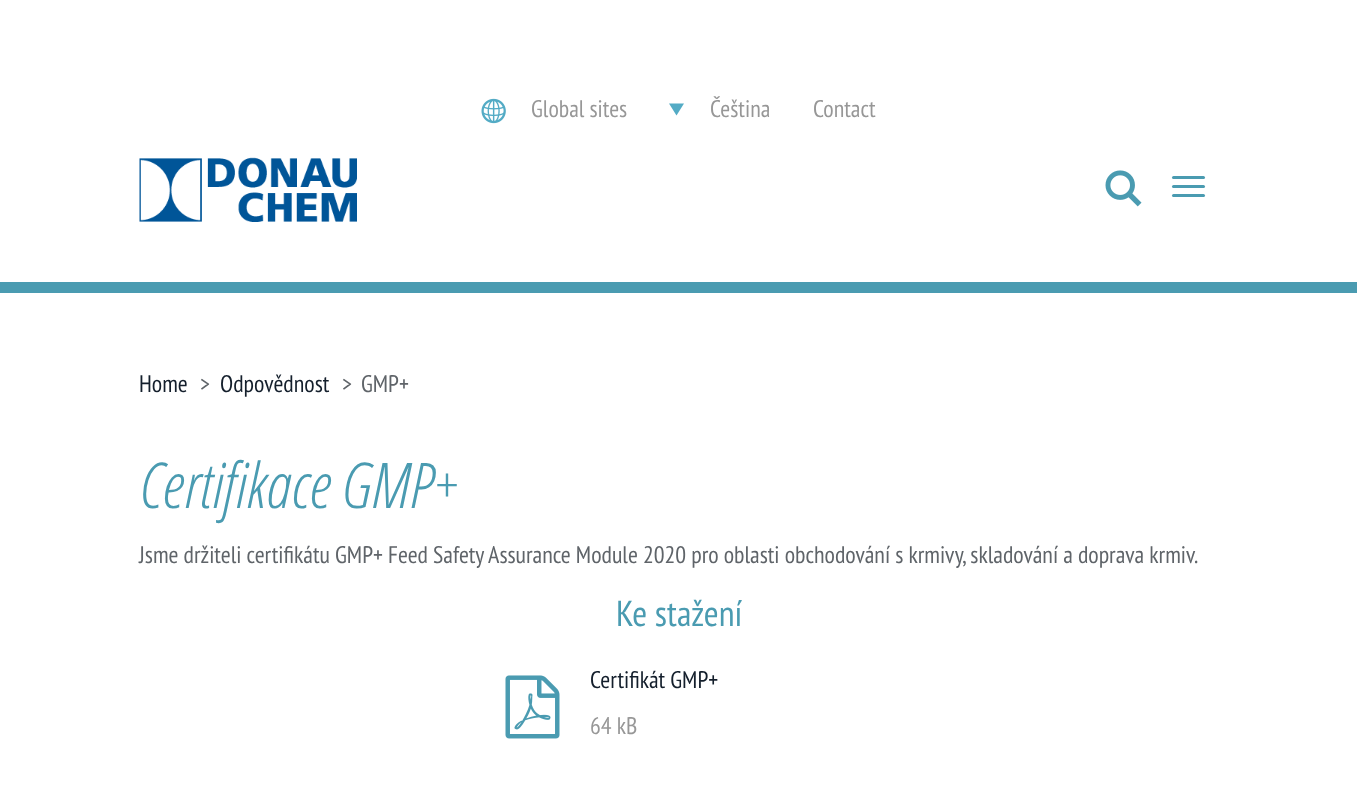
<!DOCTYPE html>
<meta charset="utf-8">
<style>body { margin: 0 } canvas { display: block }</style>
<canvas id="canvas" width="1357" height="812"></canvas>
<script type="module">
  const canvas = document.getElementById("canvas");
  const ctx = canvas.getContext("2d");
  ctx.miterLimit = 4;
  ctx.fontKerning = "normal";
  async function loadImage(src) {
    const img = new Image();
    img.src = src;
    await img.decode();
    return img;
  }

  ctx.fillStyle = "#ffffff";
  ctx.fillRect(0, 0, 1357, 812);
  ctx.fillStyle = "#4a9bb1";
  ctx.fillRect(0, 282, 1357, 11);
  ctx.drawImage(await loadImage("img1.png"), 481, 98, 25, 26);
  ctx.font = "24px PT Sans Narrow";
  ctx.fillStyle = "#979797";
  ctx.fillText("Global sites", 531, 117);
  ctx.fillStyle = "#53abc5";
  ctx.beginPath();
  ctx.moveTo(669, 103.5);
  ctx.lineTo(684, 103.5);
  ctx.lineTo(676.5, 115.5);
  ctx.closePath();
  ctx.fill();
  ctx.fillStyle = "#979797";
  ctx.fillText("Čeština", 710, 117);
  ctx.fillText("Contact", 813, 117);
  ctx.drawImage(await loadImage("img2.png"), 139, 157, 218, 65);
  ctx.drawImage(await loadImage("img3.png"), 1105, 170, 37, 37);
  ctx.fillStyle = "#4a9bb1";
  ctx.beginPath();
  ctx.roundRect(1172, 176, 33, 3, 1.5);
  ctx.fill();
  ctx.beginPath();
  ctx.roundRect(1172, 185, 33, 3, 1.5);
  ctx.fill();
  ctx.beginPath();
  ctx.roundRect(1172, 194, 33, 3, 1.5);
  ctx.fill();
  ctx.fillStyle = "#141f2c";
  ctx.fillText("Home", 139, 392);
  ctx.fillStyle = "#5f6469";
  ctx.fillText(">", 200, 392);
  ctx.fillStyle = "#141f2c";
  ctx.fillText("Odpovědnost", 220, 392);
  ctx.fillStyle = "#5f6469";
  ctx.fillText(">", 342, 392);
  ctx.fillText("GMP+", 361, 392);
  ctx.font = "italic 300 63px Open Sans Condensed";
  ctx.fillStyle = "#4a9bb1";
  ctx.fillText("Certifikace GMP+", 139, 508);
  ctx.font = "24px PT Sans Narrow";
  ctx.fillStyle = "#5f6469";
  ctx.fillText("Jsme držiteli certifikátu GMP+ Feed Safety Assurance Module 2020 pro oblasti obchodování s krmivy, skladování a doprava krmiv.", 139, 563);
  ctx.font = "36px PT Sans Narrow";
  ctx.fillStyle = "#4a9bb1";
  ctx.fillText("Ke stažení", 616, 626);
  ctx.drawImage(await loadImage("img4.png"), 505, 675, 55, 64);
  ctx.font = "24px PT Sans Narrow";
  ctx.fillStyle = "#141f2c";
  ctx.fillText("Certifikát GMP+", 590, 688);
  ctx.fillStyle = "#979797";
  ctx.fillText("64 kB", 590, 734);
</script>
